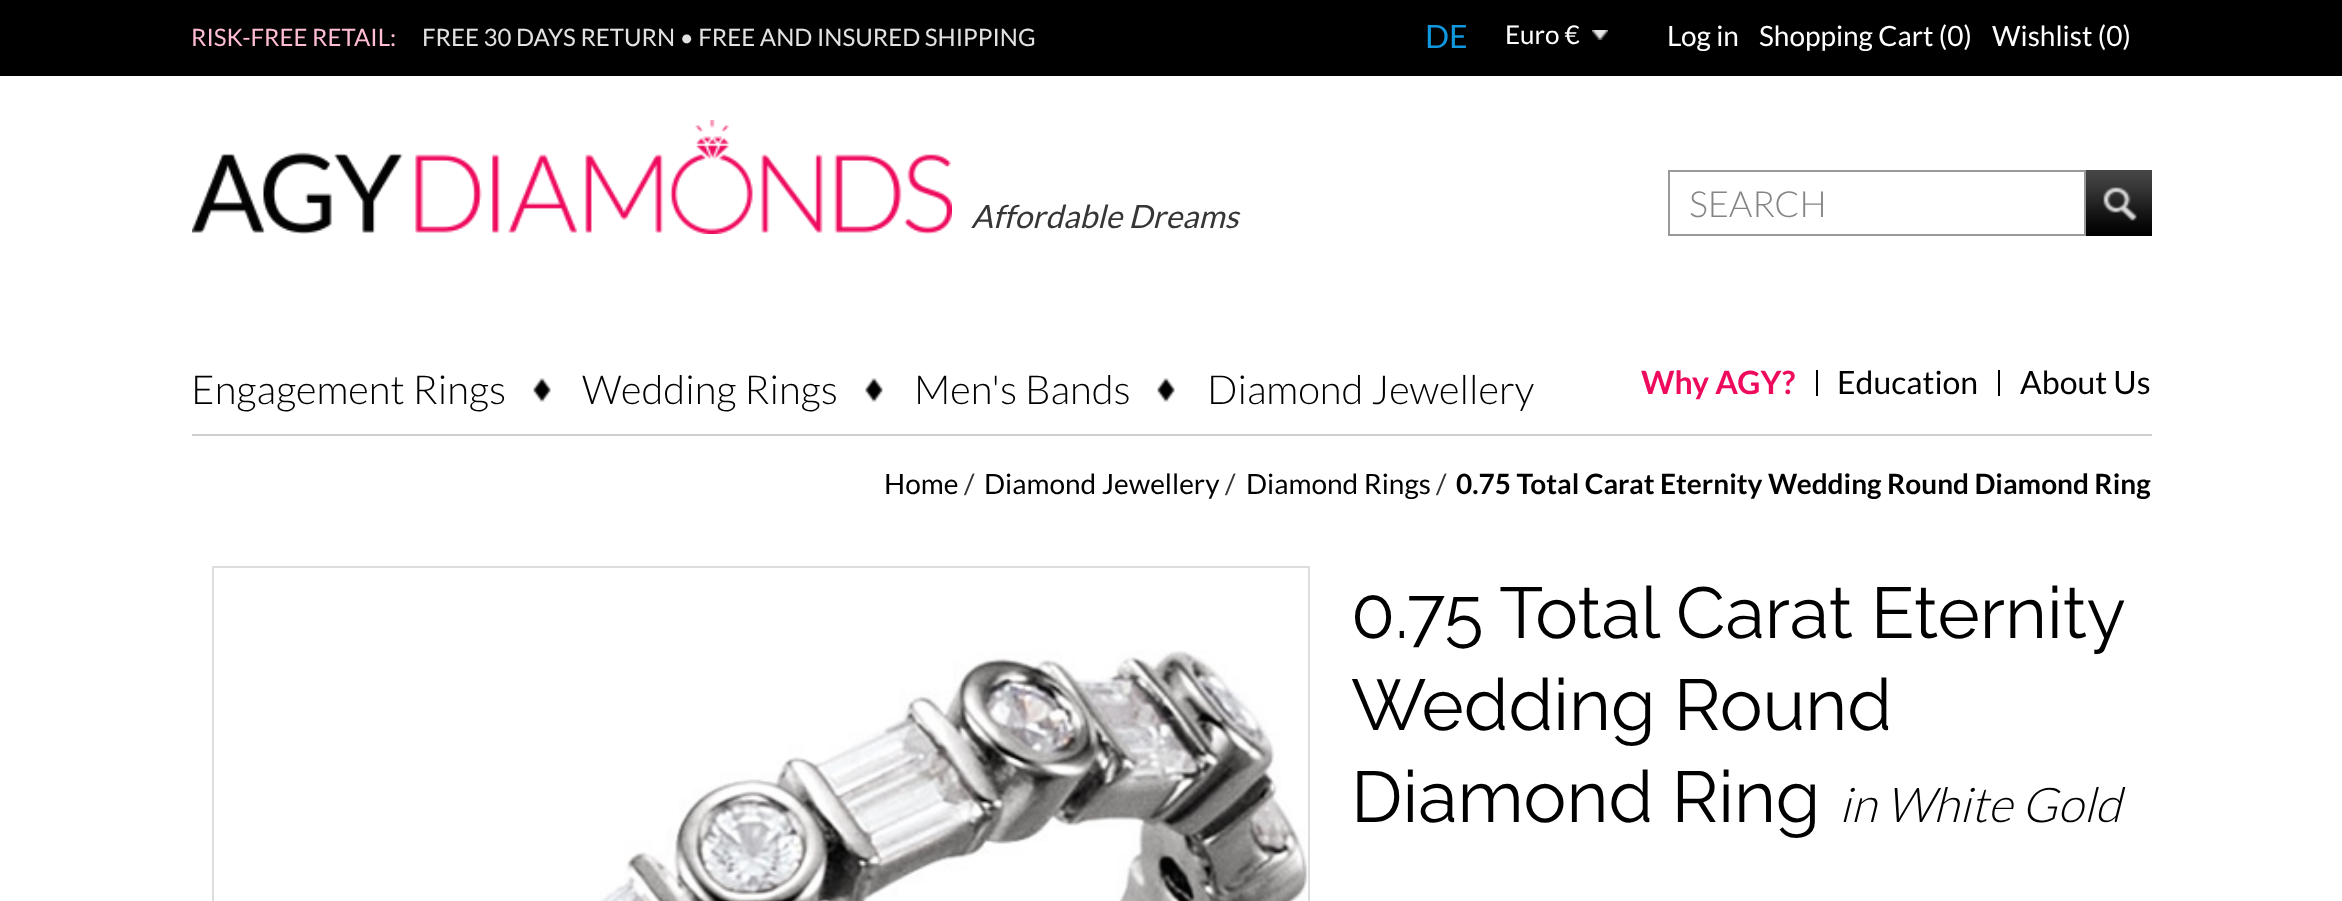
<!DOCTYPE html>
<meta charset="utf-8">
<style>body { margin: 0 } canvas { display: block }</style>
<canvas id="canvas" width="2342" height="901"></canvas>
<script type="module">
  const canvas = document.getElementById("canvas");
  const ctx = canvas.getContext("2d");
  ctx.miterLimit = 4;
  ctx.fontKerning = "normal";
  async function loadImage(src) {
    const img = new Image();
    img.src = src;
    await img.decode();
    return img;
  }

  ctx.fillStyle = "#ffffff";
  ctx.fillRect(0, 0, 2342, 901);
  ctx.fillStyle = "#000000";
  ctx.fillRect(0, 0, 2342, 76);
  ctx.font = "24px Lato";
  ctx.fillStyle = "#ffbcd5";
  ctx.fillText("RISK-FREE RETAIL:", 191, 46);
  ctx.fillStyle = "#e2e2e2";
  ctx.fillText("FREE 30 DAYS RETURN • FREE AND INSURED SHIPPING", 422, 46);
  ctx.font = "32px Lato";
  ctx.fillStyle = "#1097dd";
  ctx.fillText("DE", 1425, 48);
  ctx.drawImage(await loadImage("img1.png"), 1592, 30, 16, 10);
  ctx.font = "26px Lato";
  ctx.fillStyle = "#ffffff";
  ctx.fillText("Euro €", 1505, 44);
  ctx.font = "28px Lato";
  ctx.fillText("Log in", 1667, 46);
  ctx.fillText("Shopping Cart (0)", 1759, 46);
  ctx.fillText("Wishlist (0)", 1992, 46);
  ctx.drawImage(await loadImage("img2.png"), 192, 120, 760, 114);
  ctx.font = "italic 32px Lato";
  ctx.fillStyle = "#363636";
  ctx.fillText("Affordable Dreams", 971, 228);
  ctx.strokeStyle = "#999999";
  ctx.lineWidth = 2;
  ctx.strokeRect(1669, 171, 416, 64);
  ctx.font = "300 36px Lato";
  ctx.fillStyle = "#858585";
  ctx.fillText("SEARCH", 1689, 217);
  ctx.drawImage(await loadImage("img3.png"), 2086, 170, 66, 66);
  ctx.fillStyle = "#cfcfcf";
  ctx.fillRect(192, 434, 1960, 2);
  ctx.drawImage(await loadImage("img4.png"), 533, 378, 18, 24);
  ctx.font = "300 40px Lato";
  ctx.fillStyle = "#000000";
  ctx.fillText("Engagement Rings", 191, 404);
  ctx.drawImage(await loadImage("img4.png"), 865, 378, 18, 24);
  ctx.fillText("Wedding Rings", 582, 404);
  ctx.drawImage(await loadImage("img4.png"), 1157, 378, 18, 24);
  ctx.fillText("Men's Bands", 914, 404);
  ctx.fillText("Diamond Jewellery", 1207, 404);
  ctx.fillRect(1816, 370, 2, 26);
  ctx.font = "bold 32px Lato";
  ctx.fillStyle = "#ee0b5e";
  ctx.fillText("Why AGY?", 1641, 394);
  ctx.fillStyle = "#000000";
  ctx.fillRect(1998, 370, 2, 26);
  ctx.font = "32px Lato";
  ctx.fillText("Education", 1837, 394);
  ctx.fillText("About Us", 2020, 394);
  ctx.font = "28px Lato";
  ctx.fillText("Home", 884, 494);
  ctx.fillStyle = "#363636";
  ctx.fillText("/", 964, 494);
  ctx.fillStyle = "#000000";
  ctx.fillText("Diamond Jewellery", 984, 494);
  ctx.fillStyle = "#363636";
  ctx.fillText("/", 1225, 494);
  ctx.fillStyle = "#000000";
  ctx.fillText("Diamond Rings", 1246, 494);
  ctx.fillStyle = "#363636";
  ctx.fillText("/", 1436, 494);
  ctx.font = "bold 28px Lato";
  ctx.fillStyle = "#000000";
  ctx.fillText("0.75 Total Carat Eternity Wedding Round Diamond Ring", 1456, 494);
  ctx.strokeStyle = "#dddddd";
  ctx.strokeRect(213, 567, 1096, 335);
  ctx.drawImage(await loadImage("img5.png"), 600, 650, 708, 251);
  ctx.wordSpacing = "-0.5px";
  ctx.font = "72px Raleway";
  ctx.fillText("0.75 Total Carat Eternity", 1351, 638);
  ctx.wordSpacing = "0px";
  ctx.fillText("Wedding Round", 1351, 730);
  ctx.fillText("Diamond Ring", 1351, 822);
  ctx.font = "italic 300 48px Lato";
  ctx.fillText("in White Gold", 1839, 822);
</script>
